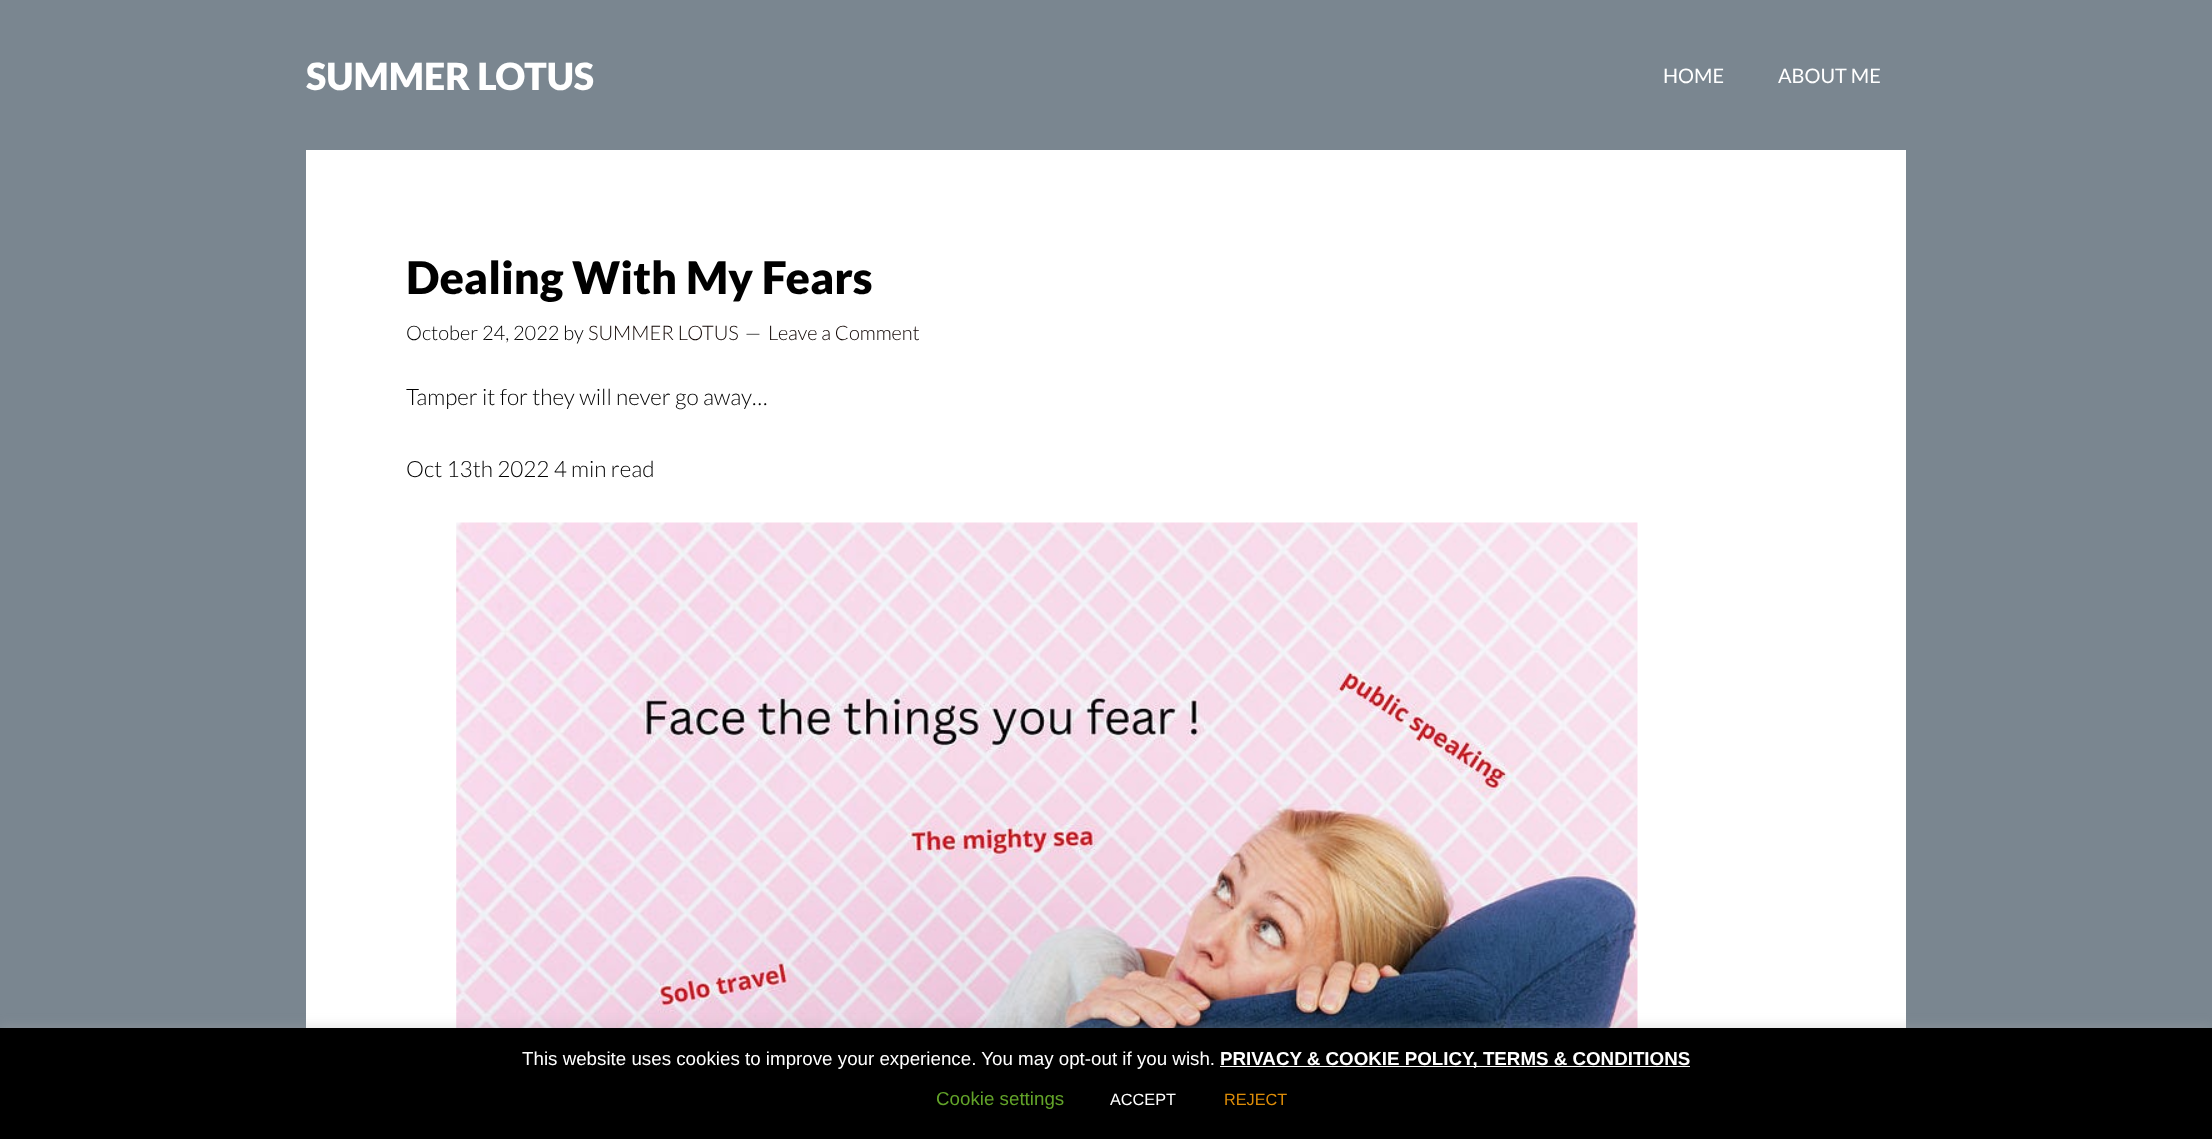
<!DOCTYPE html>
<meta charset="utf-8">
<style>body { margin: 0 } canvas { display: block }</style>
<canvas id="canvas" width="2212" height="1139"></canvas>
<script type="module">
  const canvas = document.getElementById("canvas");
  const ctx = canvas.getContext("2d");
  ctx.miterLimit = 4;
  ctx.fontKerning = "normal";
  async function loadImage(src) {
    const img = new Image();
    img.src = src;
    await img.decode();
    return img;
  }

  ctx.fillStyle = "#7a8690";
  ctx.fillRect(0, 0, 2212, 1139);
  ctx.font = "900 37.5px Lato";
  ctx.fillStyle = "#ffffff";
  ctx.fillText("SUMMER LOTUS", 306, 90);
  ctx.font = "20px Lato";
  ctx.fillText("HOME", 1663, 83);
  ctx.fillText("ABOUT ME", 1778, 83);
  ctx.fillRect(306, 150, 1600, 878);
  ctx.font = "900 45px Lato";
  ctx.fillStyle = "#000000";
  ctx.fillText("Dealing With My Fears", 406, 294);
  ctx.font = "300 20px Lato";
  ctx.fillText("October 24, 2022 by", 406, 340);
  ctx.fillStyle = "#0f0400";
  ctx.fillText("SUMMER LOTUS", 588, 340);
  ctx.fillStyle = "#000000";
  ctx.fillText("—", 745, 340);
  ctx.fillStyle = "#0f0400";
  ctx.fillText("Leave a Comment", 768, 340);
  ctx.font = "300 22.5px Lato";
  ctx.fillStyle = "#000000";
  ctx.fillText("Tamper it for they will never go away…", 406, 405);
  ctx.fillText("Oct 13th 2022 4 min read", 406, 477);
  ctx.drawImage(await loadImage("img1.png"), 456, 522, 1182, 506);
  ctx.fillStyle = "rgba(172, 171, 171, 0.3)";
  ctx.filter = "blur(6px)";
  ctx.beginPath();
  ctx.rect(0, 1026, 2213, 113);
  ctx.fill();
  ctx.filter = "none";
  ctx.fillStyle = "#000000";
  ctx.fillRect(0, 1028, 2212, 111);
  ctx.font = "18.75px Liberation Sans";
  ctx.fillStyle = "#ffffff";
  ctx.fillText("This website uses cookies to improve your experience. You may opt-out if you wish.", 522, 1065);
  ctx.fillRect(1220, 1066, 470, 1);
  ctx.font = "bold 18.75px Liberation Sans";
  ctx.fillText("PRIVACY & COOKIE POLICY, TERMS & CONDITIONS", 1220, 1065);
  ctx.font = "18.75px Liberation Sans";
  ctx.fillStyle = "#62a329";
  ctx.fillText("Cookie settings", 936, 1105);
  ctx.font = "16.25px Liberation Sans";
  ctx.fillStyle = "#ffffff";
  ctx.fillText("ACCEPT", 1110, 1105);
  ctx.fillStyle = "#dd8c08";
  ctx.fillText("REJECT", 1224, 1105);
</script>
